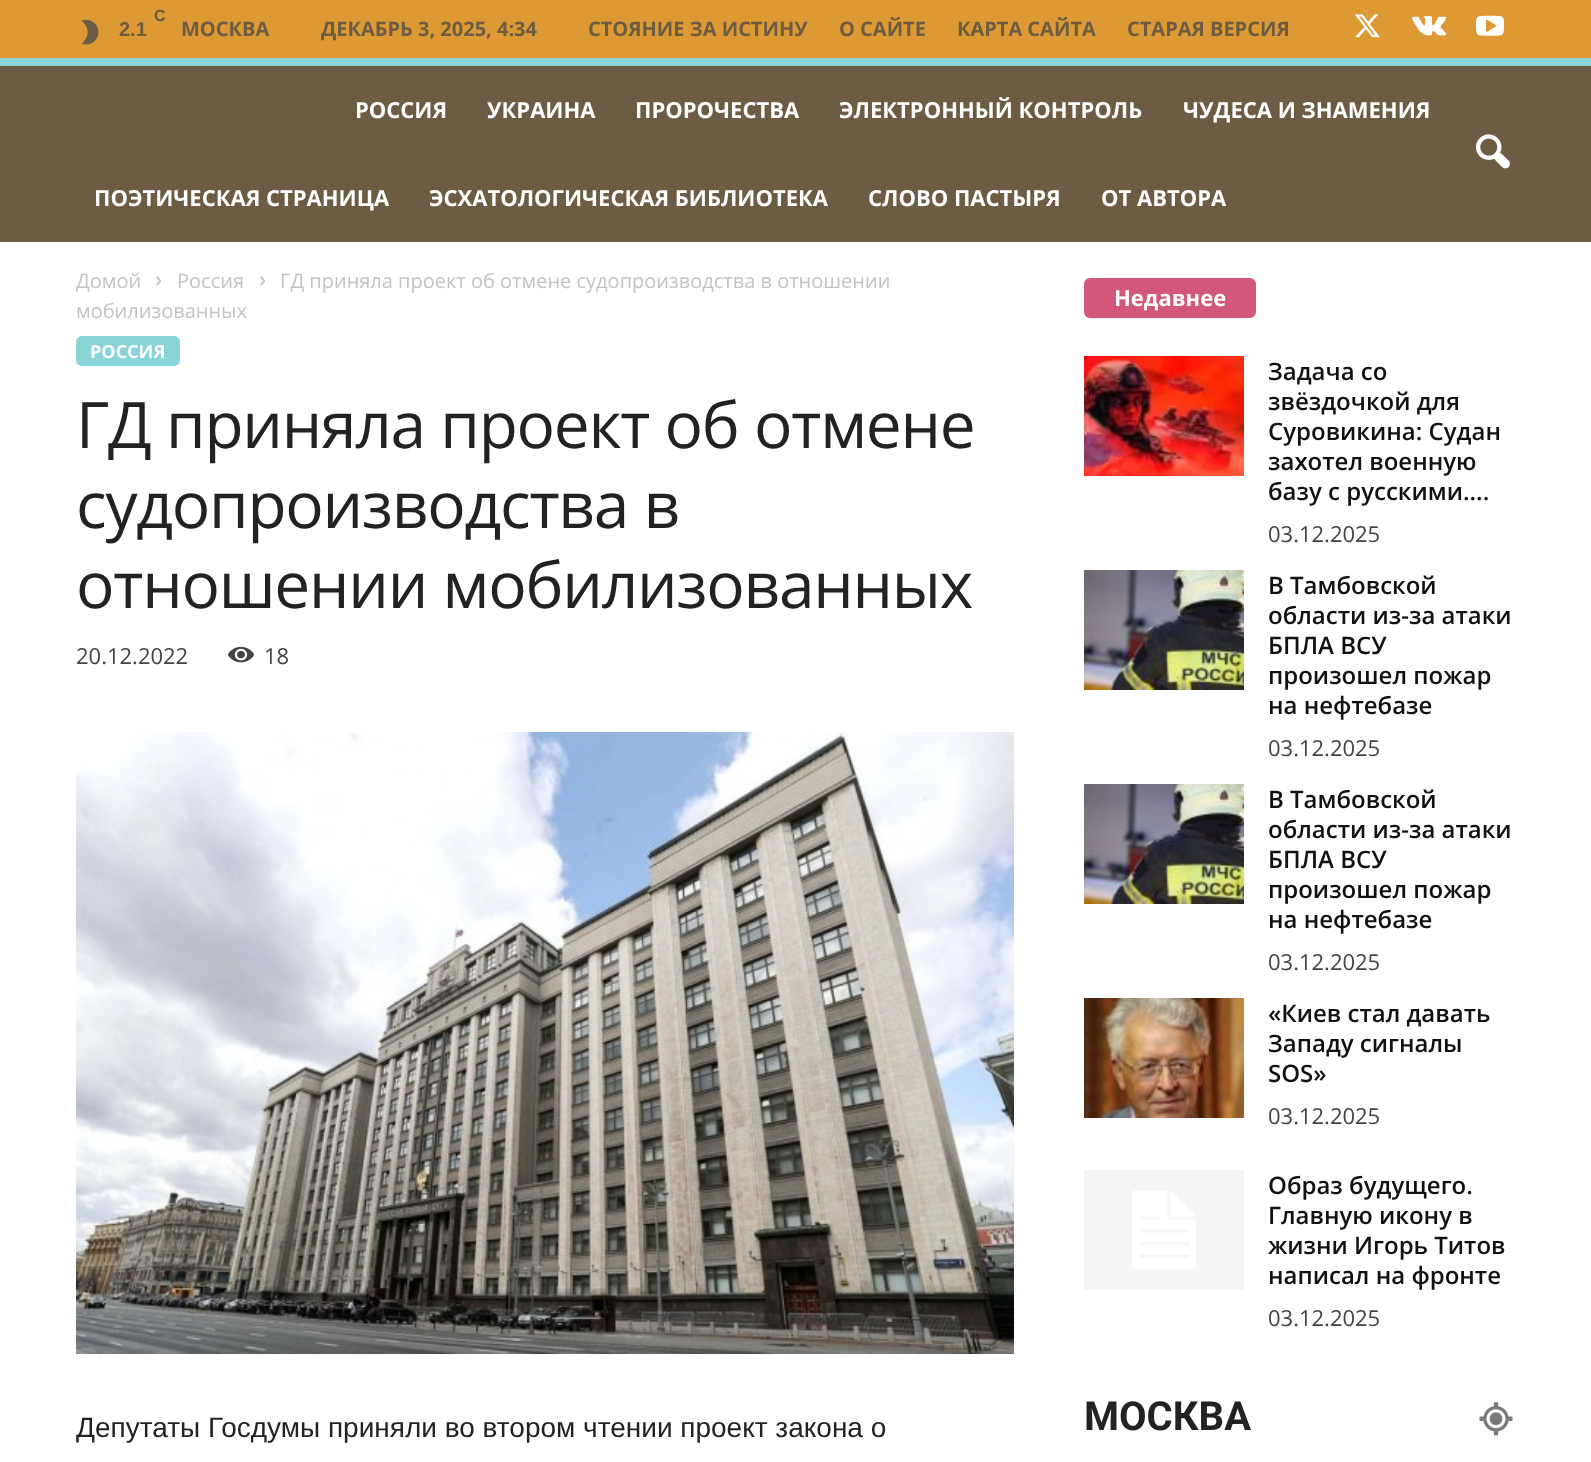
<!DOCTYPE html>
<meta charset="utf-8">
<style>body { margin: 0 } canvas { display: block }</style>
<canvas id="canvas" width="1591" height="1462"></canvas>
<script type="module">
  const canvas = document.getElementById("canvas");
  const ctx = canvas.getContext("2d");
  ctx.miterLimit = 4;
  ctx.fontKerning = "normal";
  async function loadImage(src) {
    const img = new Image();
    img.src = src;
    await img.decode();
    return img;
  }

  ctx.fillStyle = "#ffffff";
  ctx.fillRect(0, 0, 1591, 1462);
  ctx.fillStyle = "#dd9933";
  ctx.fillRect(0, 0, 1591, 58);
  ctx.drawImage(await loadImage("img1.png"), 81, 19, 18, 26);
  ctx.font = "bold 16px Liberation Sans";
  ctx.fillStyle = "#6b5c43";
  ctx.fillText("C", 154, 21);
  ctx.font = "bold 20px Liberation Sans";
  ctx.fillText("2.1", 119, 36);
  ctx.font = "bold 20px Open Sans";
  ctx.fillText("МОСКВА", 181, 36);
  ctx.fillText("ДЕКАБРЬ 3, 2025, 4:34", 321, 36);
  ctx.fillText("СТОЯНИЕ ЗА ИСТИНУ", 588, 36);
  ctx.fillText("О САЙТЕ", 839, 36);
  ctx.fillText("КАРТА САЙТА", 957, 36);
  ctx.fillText("СТАРАЯ ВЕРСИЯ", 1127, 36);
  ctx.drawImage(await loadImage("img2.png"), 1354, 14, 26, 24);
  ctx.drawImage(await loadImage("img3.png"), 1412, 15, 35, 21);
  ctx.drawImage(await loadImage("img4.png"), 1476, 15, 28, 21);
  ctx.fillRect(0, 66, 1591, 176);
  ctx.fillStyle = "#89d4d7";
  ctx.fillRect(0, 58, 1591, 8);
  ctx.font = "bold 22px Open Sans";
  ctx.fillStyle = "#ffffff";
  ctx.fillText("РОССИЯ", 355, 118);
  ctx.fillText("УКРАИНА", 487, 118);
  ctx.fillText("ПРОРОЧЕСТВА", 635, 118);
  ctx.fillText("ЭЛЕКТРОННЫЙ КОНТРОЛЬ", 839, 118);
  ctx.fillText("ЧУДЕСА И ЗНАМЕНИЯ", 1183, 118);
  ctx.fillText("ПОЭТИЧЕСКАЯ СТРАНИЦА", 94, 206);
  ctx.fillText("ЭСХАТОЛОГИЧЕСКАЯ БИБЛИОТЕКА", 429, 206);
  ctx.fillText("СЛОВО ПАСТЫРЯ", 868, 206);
  ctx.fillText("ОТ АВТОРА", 1101, 206);
  ctx.drawImage(await loadImage("img5.png"), 1476, 134, 34, 35);
  ctx.font = "20px Open Sans";
  ctx.fillStyle = "#c3c3c3";
  ctx.fillText("Домой", 76, 288);
  ctx.drawImage(await loadImage("img6.png"), 156, 276, 6, 10);
  ctx.fillText("Россия", 177, 288);
  ctx.drawImage(await loadImage("img6.png"), 260, 276, 6, 10);
  ctx.fillText("ГД приняла проект об отмене судопроизводства в отношении", 280, 288);
  ctx.fillText("мобилизованных", 76, 318);
  ctx.fillStyle = "#89d4d7";
  ctx.beginPath();
  ctx.roundRect(76, 336, 104, 30, 6);
  ctx.fill();
  ctx.font = "bold 18px Open Sans";
  ctx.fillStyle = "#ffffff";
  ctx.fillText("РОССИЯ", 90, 358);
  ctx.letterSpacing = "-1.25px";
  ctx.font = "64px Open Sans";
  ctx.fillStyle = "#222222";
  ctx.fillText("ГД приняла проект об отмене", 76, 448);
  ctx.fillText("судопроизводства в", 76, 528);
  ctx.fillText("отношении мобилизованных", 76, 608);
  ctx.letterSpacing = "0px";
  ctx.font = "22px Open Sans";
  ctx.fillStyle = "#444444";
  ctx.fillText("20.12.2022", 76, 664);
  ctx.drawImage(await loadImage("img7.png"), 228, 646, 26, 17);
  ctx.fillText("18", 264, 664);
  ctx.drawImage(await loadImage("img8.png"), 76, 732, 938, 622);
  ctx.font = "28px Liberation Sans";
  ctx.fillStyle = "#222222";
  ctx.fillText("Депутаты Госдумы приняли во втором чтении проект закона о", 76, 1437);
  ctx.fillStyle = "#d25779";
  ctx.beginPath();
  ctx.roundRect(1084, 278, 172, 40, 6);
  ctx.fill();
  ctx.font = "bold 22px Open Sans";
  ctx.fillStyle = "#ffffff";
  ctx.fillText("Недавнее", 1114, 306);
  ctx.drawImage(await loadImage("img9.png"), 1084, 356, 160, 120);
  ctx.font = "600 24px Open Sans";
  ctx.fillStyle = "#111111";
  ctx.fillText("Задача со", 1268, 380);
  ctx.fillText("звёздочкой для", 1268, 410);
  ctx.fillText("Суровикина: Судан", 1268, 440);
  ctx.fillText("захотел военную", 1268, 470);
  ctx.fillText("базу с русскими....", 1268, 500);
  ctx.font = "22px Open Sans";
  ctx.fillStyle = "#444444";
  ctx.fillText("03.12.2025", 1268, 542);
  ctx.drawImage(await loadImage("img10.png"), 1084, 570, 160, 120);
  ctx.font = "600 24px Open Sans";
  ctx.fillStyle = "#111111";
  ctx.fillText("В Тамбовской", 1268, 594);
  ctx.fillText("области из-за атаки", 1268, 624);
  ctx.fillText("БПЛА ВСУ", 1268, 654);
  ctx.fillText("произошел пожар", 1268, 684);
  ctx.fillText("на нефтебазе", 1268, 714);
  ctx.font = "22px Open Sans";
  ctx.fillStyle = "#444444";
  ctx.fillText("03.12.2025", 1268, 756);
  ctx.drawImage(await loadImage("img10.png"), 1084, 784, 160, 120);
  ctx.font = "600 24px Open Sans";
  ctx.fillStyle = "#111111";
  ctx.fillText("В Тамбовской", 1268, 808);
  ctx.fillText("области из-за атаки", 1268, 838);
  ctx.fillText("БПЛА ВСУ", 1268, 868);
  ctx.fillText("произошел пожар", 1268, 898);
  ctx.fillText("на нефтебазе", 1268, 928);
  ctx.font = "22px Open Sans";
  ctx.fillStyle = "#444444";
  ctx.fillText("03.12.2025", 1268, 970);
  ctx.drawImage(await loadImage("img11.png"), 1084, 998, 160, 120);
  ctx.font = "600 24px Open Sans";
  ctx.fillStyle = "#111111";
  ctx.fillText("«Киев стал давать", 1268, 1022);
  ctx.fillText("Западу сигналы", 1268, 1052);
  ctx.fillText("SOS»", 1268, 1082);
  ctx.font = "22px Open Sans";
  ctx.fillStyle = "#444444";
  ctx.fillText("03.12.2025", 1268, 1124);
  ctx.drawImage(await loadImage("img12.png"), 1084, 1170, 160, 120);
  ctx.font = "600 24px Open Sans";
  ctx.fillStyle = "#111111";
  ctx.fillText("Образ будущего.", 1268, 1194);
  ctx.fillText("Главную икону в", 1268, 1224);
  ctx.fillText("жизни Игорь Титов", 1268, 1254);
  ctx.fillText("написал на фронте", 1268, 1284);
  ctx.font = "22px Open Sans";
  ctx.fillStyle = "#444444";
  ctx.fillText("03.12.2025", 1268, 1326);
  ctx.font = "bold 40px Roboto";
  ctx.fillStyle = "#222222";
  ctx.fillText("МОСКВА", 1084, 1430);
  ctx.drawImage(await loadImage("img13.png"), 1479, 1402, 34, 34);
</script>
